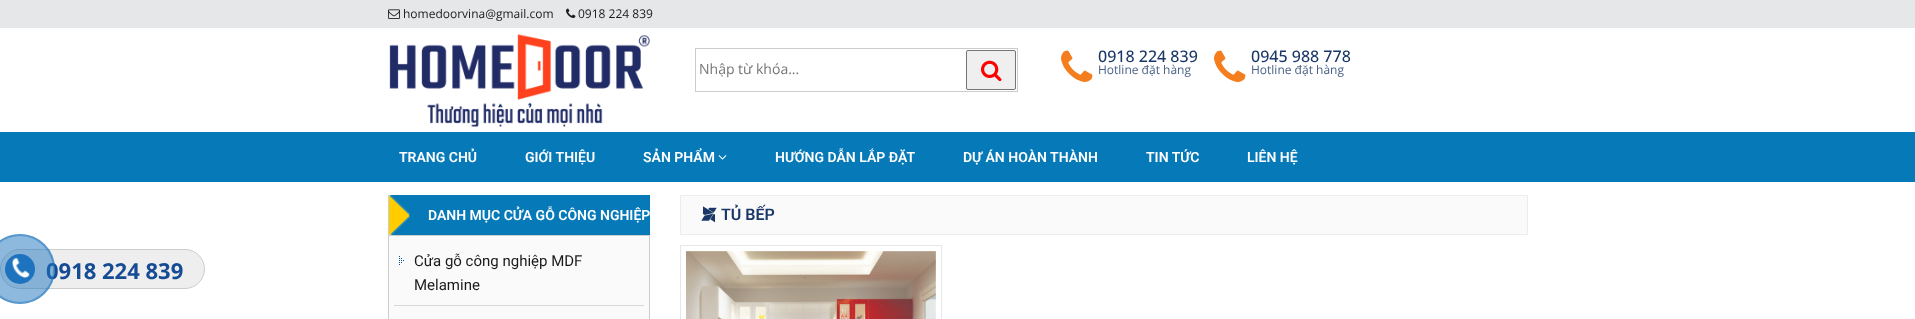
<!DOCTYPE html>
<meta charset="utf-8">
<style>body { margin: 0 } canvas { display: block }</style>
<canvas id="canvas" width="1915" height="319"></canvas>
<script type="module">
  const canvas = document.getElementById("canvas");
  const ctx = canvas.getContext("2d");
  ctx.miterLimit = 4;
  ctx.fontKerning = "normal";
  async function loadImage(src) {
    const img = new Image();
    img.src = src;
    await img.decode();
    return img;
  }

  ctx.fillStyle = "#ffffff";
  ctx.fillRect(0, 0, 1915, 319);
  ctx.fillStyle = "#e6e7e9";
  ctx.fillRect(0, 0, 1915, 28);
  ctx.drawImage(await loadImage("img1.png"), 388, 9, 12, 10);
  ctx.font = "12px Open Sans";
  ctx.fillStyle = "#1b1b1b";
  ctx.fillText("homedoorvina@gmail.com", 403, 18);
  ctx.drawImage(await loadImage("img2.png"), 566, 8, 10, 10);
  ctx.fillText("0918 224 839", 578, 18);
  ctx.drawImage(await loadImage("img3.png"), 389, 34, 261, 93);
  ctx.strokeStyle = "#cccccc";
  ctx.strokeRect(695.5, 48.5, 322, 43);
  ctx.font = "14px Open Sans";
  ctx.fillStyle = "#757575";
  ctx.fillText("Nhập từ khóa...", 699, 74);
  ctx.fillStyle = "#efefef";
  ctx.beginPath();
  ctx.roundRect(966.5, 50.5, 49, 39, 1.5);
  ctx.fill();
  ctx.strokeStyle = "#767676";
  ctx.stroke();
  ctx.drawImage(await loadImage("img4.png"), 981, 60, 21, 22);
  ctx.drawImage(await loadImage("img5.png"), 1061, 50, 32, 32);
  ctx.font = "500 16px Open Sans";
  ctx.fillStyle = "#1a3768";
  ctx.fillText("0918 224 839", 1098, 62);
  ctx.font = "12px Open Sans";
  ctx.fillStyle = "#485f86";
  ctx.fillText("Hotline đặt hàng", 1098, 74);
  ctx.drawImage(await loadImage("img5.png"), 1214, 50, 32, 32);
  ctx.font = "500 16px Open Sans";
  ctx.fillStyle = "#1a3768";
  ctx.fillText("0945 988 778", 1251, 62);
  ctx.font = "12px Open Sans";
  ctx.fillStyle = "#485f86";
  ctx.fillText("Hotline đặt hàng", 1251, 74);
  ctx.fillStyle = "#0679b8";
  ctx.fillRect(0, 132, 1915, 50);
  ctx.font = "600 14px Roboto";
  ctx.fillStyle = "#ffffff";
  ctx.fillText("TRANG CHỦ", 399, 162);
  ctx.fillText("GIỚI THIỆU", 525, 162);
  ctx.fillText("SẢN PHẨM", 643, 162);
  ctx.drawImage(await loadImage("img6.png"), 718, 155, 9, 5);
  ctx.fillText("HƯỚNG DẪN LẮP ĐẶT", 775, 162);
  ctx.fillText("DỰ ÁN HOÀN THÀNH", 963, 162);
  ctx.fillText("TIN TỨC", 1146, 162);
  ctx.fillText("LIÊN HỆ", 1247, 162);
  ctx.fillStyle = "#eeeeee";
  ctx.beginPath();
  ctx.roundRect(0.5, 249.5, 204, 39, 19.5);
  ctx.fill();
  ctx.strokeStyle = "#cccccc";
  ctx.stroke();
  ctx.font = "bold 22px Open Sans";
  ctx.fillStyle = "#154c94";
  ctx.fillText("0918 224 839", 46, 279);
  ctx.fillStyle = "rgba(30, 115, 190, 0.5)";
  ctx.beginPath();
  ctx.arc(20, 269, 35, 0, Math.PI * 2);
  ctx.fill();
  ctx.beginPath();
  ctx.arc(20, 269, 34, 0, Math.PI * 2);
  ctx.strokeStyle = "rgba(30, 115, 190, 0.5)";
  ctx.lineWidth = 2;
  ctx.stroke();
  ctx.fillStyle = "#1e73be";
  ctx.beginPath();
  ctx.arc(20, 269, 15, 0, Math.PI * 2);
  ctx.fill();
  ctx.drawImage(await loadImage("img7.png"), 11, 257, 19, 22);
  ctx.fillStyle = "#0679b8";
  ctx.fillRect(410, 195, 240, 40);
  ctx.drawImage(await loadImage("img8.png"), 388, 195, 22, 40);
  ctx.font = "600 14px Roboto";
  ctx.fillStyle = "#ffffff";
  ctx.fillText("DANH MỤC CỬA GỖ CÔNG NGHIỆP", 428, 220);
  ctx.fillStyle = "#fafafa";
  ctx.beginPath();
  ctx.rect(388.5, 235.5, 261, 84);
  ctx.fill();
  ctx.strokeStyle = "#cccccc";
  ctx.lineWidth = 1;
  ctx.stroke();
  ctx.drawImage(await loadImage("img9.png"), 399, 256, 5, 9);
  ctx.fillStyle = "#d8d7d7";
  ctx.fillRect(394, 305, 250, 1);
  ctx.font = "15px Roboto";
  ctx.fillStyle = "#1b1b1b";
  ctx.fillText("Cửa gỗ công nghiệp MDF", 414, 266);
  ctx.fillText("Melamine", 414, 290);
  ctx.fillStyle = "#fafafa";
  ctx.beginPath();
  ctx.rect(680.5, 195.5, 847, 39);
  ctx.fill();
  ctx.strokeStyle = "#ececec";
  ctx.stroke();
  ctx.drawImage(await loadImage("img10.png"), 701, 206, 16, 17);
  ctx.font = "600 16px Roboto";
  ctx.fillStyle = "#1a3768";
  ctx.fillText("TỦ BẾP", 721, 220);
  ctx.strokeStyle = "#e6e6e6";
  ctx.strokeRect(680.5, 245.5, 261, 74);
  ctx.drawImage(await loadImage("img11.png"), 686, 251, 250, 68);
</script>
